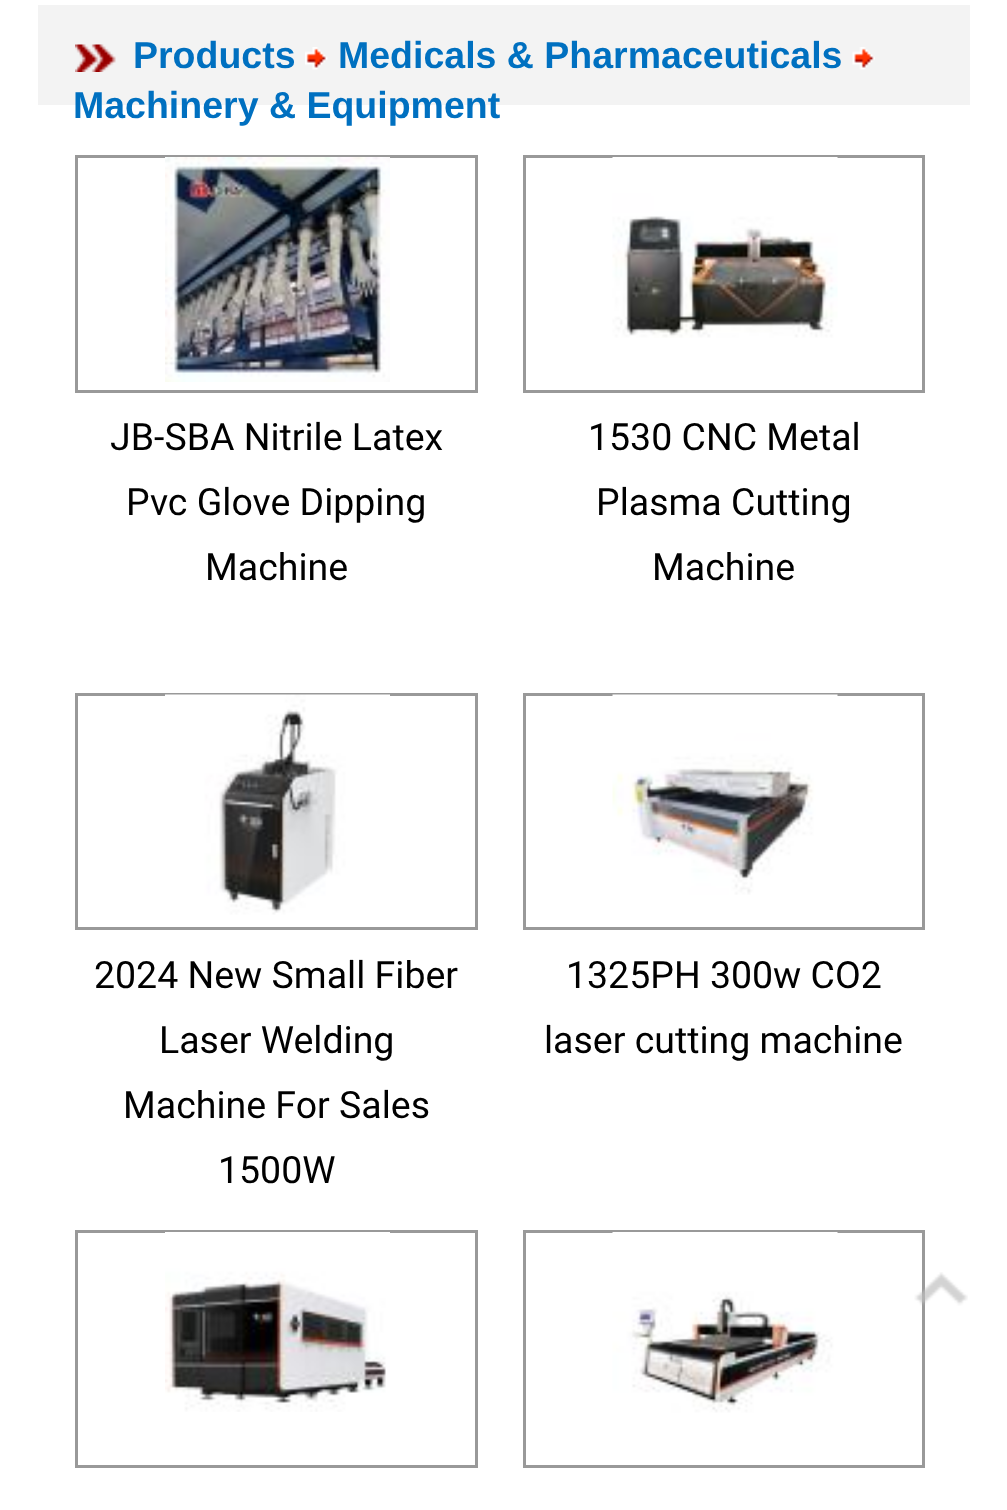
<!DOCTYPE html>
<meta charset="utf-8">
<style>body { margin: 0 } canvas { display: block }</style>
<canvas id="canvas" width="1007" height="1510"></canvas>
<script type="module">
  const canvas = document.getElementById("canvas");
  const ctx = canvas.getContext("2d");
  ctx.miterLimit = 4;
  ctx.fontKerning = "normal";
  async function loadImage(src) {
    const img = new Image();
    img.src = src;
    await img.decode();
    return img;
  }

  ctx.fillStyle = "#ffffff";
  ctx.fillRect(0, 0, 1007, 1510);
  ctx.fillStyle = "#f3f3f3";
  ctx.fillRect(38, 5, 932, 100);
  ctx.drawImage(await loadImage("img1.png"), 75, 44, 41, 28);
  ctx.font = "bold 37.5px Liberation Sans";
  ctx.fillStyle = "#0070c0";
  ctx.fillText("Products", 133, 68);
  ctx.drawImage(await loadImage("img2.png"), 305, 47, 23, 23);
  ctx.fillText("Medicals & Pharmaceuticals", 338, 68);
  ctx.drawImage(await loadImage("img3.png"), 852, 47, 23, 23);
  ctx.fillText("Machinery & Equipment", 73, 118);
  ctx.strokeStyle = "#999999";
  ctx.lineWidth = 3;
  ctx.strokeRect(76.5, 156.5, 400, 235);
  ctx.drawImage(await loadImage("img4.png"), 165, 157, 225, 225);
  ctx.font = "37.5px Roboto";
  ctx.fillStyle = "#000000";
  ctx.fillText("JB-SBA Nitrile Latex", 110, 450);
  ctx.fillText("Pvc Glove Dipping", 126, 515);
  ctx.fillText("Machine", 205, 580);
  ctx.strokeRect(524.5, 156.5, 399, 235);
  ctx.drawImage(await loadImage("img5.png"), 612, 157, 226, 181);
  ctx.fillText("1530 CNC Metal", 588, 450);
  ctx.fillText("Plasma Cutting", 596, 515);
  ctx.fillText("Machine", 652, 580);
  ctx.strokeRect(76.5, 694.5, 400, 234);
  ctx.drawImage(await loadImage("img6.png"), 165, 694, 225, 221);
  ctx.fillText("2024 New Small Fiber", 94, 988);
  ctx.fillText("Laser Welding", 159, 1053);
  ctx.fillText("Machine For Sales", 123, 1118);
  ctx.fillText("1500W", 218, 1183);
  ctx.strokeRect(524.5, 694.5, 399, 234);
  ctx.drawImage(await loadImage("img7.png"), 612, 694, 226, 201);
  ctx.fillText("1325PH 300w CO2", 566, 988);
  ctx.fillText("laser cutting machine", 544, 1053);
  ctx.strokeRect(76.5, 1231.5, 400, 235);
  ctx.drawImage(await loadImage("img8.png"), 165, 1232, 225, 180);
  ctx.strokeRect(524.5, 1231.5, 399, 235);
  ctx.drawImage(await loadImage("img9.png"), 612, 1232, 226, 181);
  ctx.drawImage(await loadImage("img10.png"), 914, 1272, 54, 34);
</script>
